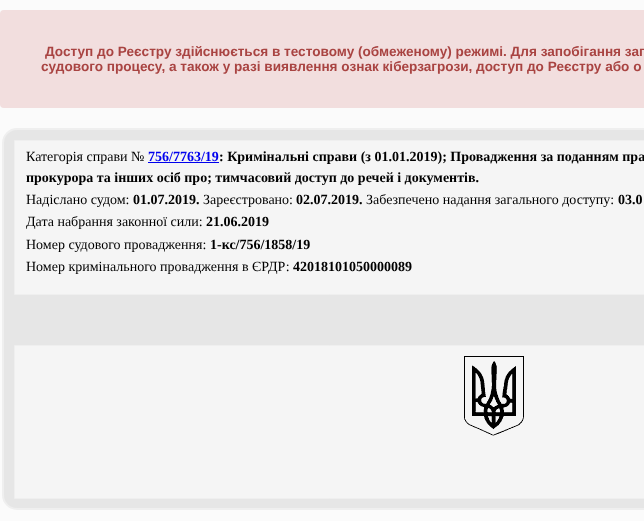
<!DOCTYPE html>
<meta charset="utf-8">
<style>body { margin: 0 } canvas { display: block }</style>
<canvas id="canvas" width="644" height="521"></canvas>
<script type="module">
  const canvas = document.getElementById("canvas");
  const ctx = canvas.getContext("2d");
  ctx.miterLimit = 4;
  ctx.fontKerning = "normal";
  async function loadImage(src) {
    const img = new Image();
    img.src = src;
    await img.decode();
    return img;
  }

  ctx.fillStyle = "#fbfbfb";
  ctx.fillRect(0, 0, 644, 521);
  ctx.fillStyle = "#f2dede";
  ctx.beginPath();
  ctx.roundRect(0, 10, 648, 98, 4);
  ctx.fill();
  ctx.font = "bold 13.6px Liberation Sans";
  ctx.fillStyle = "#a94442";
  ctx.fillText("Доступ до Реєстру здійснюється в тестовому (обмеженому) режимі. Для запобігання заг", 45, 56);
  ctx.fillText("судового процесу, а також у разі виявлення ознак кіберзагрози, доступ до Реєстру або о", 41, 71);
  ctx.fillStyle = "#e6e6e6";
  ctx.beginPath();
  ctx.roundRect(3, 129, 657, 380, 14);
  ctx.fill();
  ctx.strokeStyle = "#efefef";
  ctx.lineWidth = 2;
  ctx.stroke();
  ctx.fillStyle = "#f5f5f5";
  ctx.beginPath();
  ctx.rect(14.5, 140.5, 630, 154);
  ctx.fill();
  ctx.lineWidth = 1;
  ctx.stroke();
  ctx.font = "14px Liberation Serif";
  ctx.fillStyle = "#000000";
  ctx.fillText("Категорія справи №", 26, 161);
  ctx.font = "bold 14px Liberation Serif";
  ctx.fillStyle = "#0000ee";
  ctx.fillText("756/7763/19", 148, 161);
  ctx.fillStyle = "#000000";
  ctx.fillText(": Кримінальні справи (з 01.01.2019); Провадження за поданням пра", 219, 161);
  ctx.fillStyle = "#0000ee";
  ctx.fillRect(148, 162, 71, 1);
  ctx.fillStyle = "#000000";
  ctx.fillText("прокурора та інших осіб про; тимчасовий доступ до речей і документів.", 26, 182);
  ctx.font = "14px Liberation Serif";
  ctx.fillText("Надіслано судом:", 26, 204);
  ctx.font = "bold 14px Liberation Serif";
  ctx.fillText("01.07.2019.", 133, 204);
  ctx.font = "14px Liberation Serif";
  ctx.fillText("Зареєстровано:", 203, 204);
  ctx.font = "bold 14px Liberation Serif";
  ctx.fillText("02.07.2019.", 296, 204);
  ctx.font = "14px Liberation Serif";
  ctx.fillText("Забезпечено надання загального доступу:", 366, 204);
  ctx.font = "bold 14px Liberation Serif";
  ctx.fillText("03.0", 618, 204);
  ctx.font = "14px Liberation Serif";
  ctx.fillText("Дата набрання законної сили:", 26, 226);
  ctx.font = "bold 14px Liberation Serif";
  ctx.fillText("21.06.2019", 206, 226);
  ctx.font = "14px Liberation Serif";
  ctx.fillText("Номер судового провадження:", 26, 249);
  ctx.font = "bold 14px Liberation Serif";
  ctx.fillText("1-кс/756/1858/19", 210, 249);
  ctx.font = "14px Liberation Serif";
  ctx.fillText("Номер кримінального провадження в ЄРДР:", 26, 271);
  ctx.font = "bold 14px Liberation Serif";
  ctx.fillText("42018101050000089", 293, 271);
  ctx.fillStyle = "#f5f5f5";
  ctx.beginPath();
  ctx.rect(14.5, 345.5, 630, 153);
  ctx.fill();
  ctx.stroke();
  ctx.drawImage(await loadImage("img1.png"), 464, 356, 60, 80);
</script>
